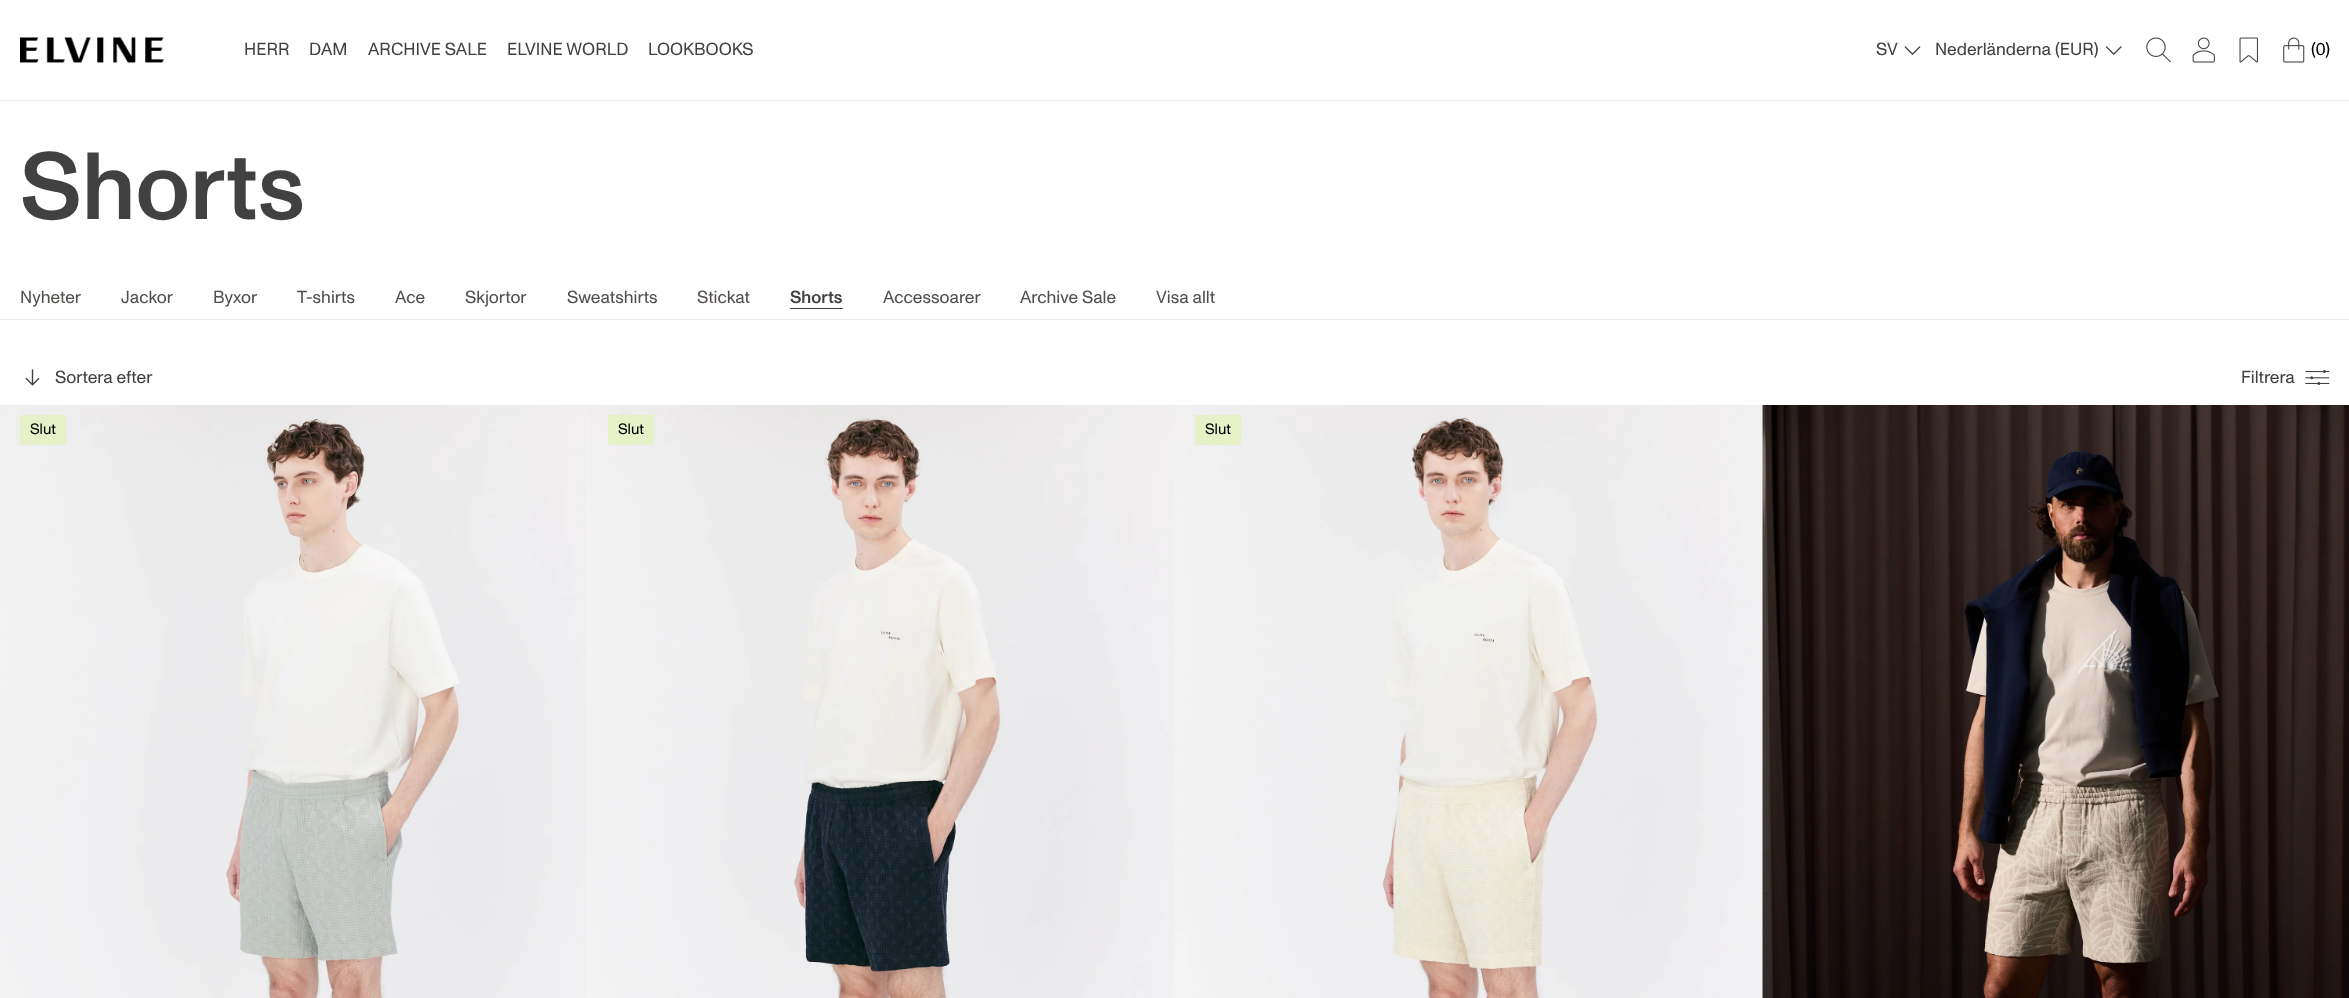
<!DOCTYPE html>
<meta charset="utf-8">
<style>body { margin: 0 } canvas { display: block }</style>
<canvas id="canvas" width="2349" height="998"></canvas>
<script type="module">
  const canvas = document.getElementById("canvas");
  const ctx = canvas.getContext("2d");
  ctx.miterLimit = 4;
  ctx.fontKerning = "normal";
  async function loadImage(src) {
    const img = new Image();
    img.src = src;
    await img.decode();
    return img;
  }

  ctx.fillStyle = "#ffffff";
  ctx.fillRect(0, 0, 2349, 998);
  ctx.fillStyle = "#ededee";
  ctx.fillRect(0, 100, 2349, 1);
  ctx.drawImage(await loadImage("img1.png"), 20, 37, 144, 26);
  ctx.font = "17.5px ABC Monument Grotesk";
  ctx.fillStyle = "#414141";
  ctx.fillText("HERR", 244, 55);
  ctx.fillText("DAM", 309, 55);
  ctx.fillText("ARCHIVE SALE", 368, 55);
  ctx.fillText("ELVINE WORLD", 507, 55);
  ctx.fillText("LOOKBOOKS", 648, 55);
  ctx.fillText("SV", 1876, 55);
  ctx.drawImage(await loadImage("img2.png"), 1904, 46, 17, 9);
  ctx.fillText("Nederländerna (EUR)", 1935, 55);
  ctx.drawImage(await loadImage("img3.png"), 2105, 46, 17, 9);
  ctx.drawImage(await loadImage("img4.png"), 2146, 37, 25, 26);
  ctx.drawImage(await loadImage("img5.png"), 2192, 37, 23, 26);
  ctx.drawImage(await loadImage("img6.png"), 2239, 37, 19, 26);
  ctx.drawImage(await loadImage("img7.png"), 2283, 37, 22, 26);
  ctx.fillStyle = "#000000";
  ctx.fillText("(0)", 2311, 55);
  ctx.font = "500 95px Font";
  ctx.fillStyle = "#414141";
  ctx.fillText("Shorts", 20, 219);
  ctx.fillStyle = "#ededee";
  ctx.fillRect(0, 319, 2349, 1);
  ctx.font = "17.5px ABC Monument Grotesk";
  ctx.fillStyle = "#514e4c";
  ctx.fillText("Nyheter", 20, 303);
  ctx.fillText("Jackor", 121, 303);
  ctx.fillText("Byxor", 213, 303);
  ctx.fillText("T-shirts", 297, 303);
  ctx.fillText("Ace", 395, 303);
  ctx.fillText("Skjortor", 465, 303);
  ctx.fillText("Sweatshirts", 567, 303);
  ctx.fillText("Stickat", 697, 303);
  ctx.font = "500 17.5px Font";
  ctx.fillStyle = "#414141";
  ctx.fillText("Shorts", 790, 303);
  ctx.fillRect(790, 308, 53, 1);
  ctx.font = "17.5px ABC Monument Grotesk";
  ctx.fillStyle = "#514e4c";
  ctx.fillText("Accessoarer", 883, 303);
  ctx.fillText("Archive Sale", 1020, 303);
  ctx.fillText("Visa allt", 1156, 303);
  ctx.drawImage(await loadImage("img8.png"), 25, 369, 15, 17);
  ctx.fillStyle = "#414141";
  ctx.fillText("Sortera efter", 55, 383);
  ctx.fillText("Filtrera", 2241, 383);
  ctx.drawImage(await loadImage("img9.png"), 2305, 370, 25, 15);
  ctx.drawImage(await loadImage("img10.png"), 0, 405, 588, 593);
  ctx.fillStyle = "#e7f1c8";
  ctx.fillRect(20, 415, 46, 30);
  ctx.font = "15px ABC Monument Grotesk";
  ctx.fillStyle = "#000000";
  ctx.fillText("Slut", 30, 434);
  ctx.drawImage(await loadImage("img11.png"), 587, 405, 588, 593);
  ctx.fillStyle = "#e7f1c8";
  ctx.fillRect(608, 415, 46, 30);
  ctx.fillStyle = "#000000";
  ctx.fillText("Slut", 618, 434);
  ctx.drawImage(await loadImage("img12.png"), 1175, 405, 588, 593);
  ctx.fillStyle = "#e7f1c8";
  ctx.fillRect(1195, 415, 46, 30);
  ctx.fillStyle = "#000000";
  ctx.fillText("Slut", 1205, 434);
  ctx.drawImage(await loadImage("img13.png"), 1762, 405, 587, 593);
</script>
